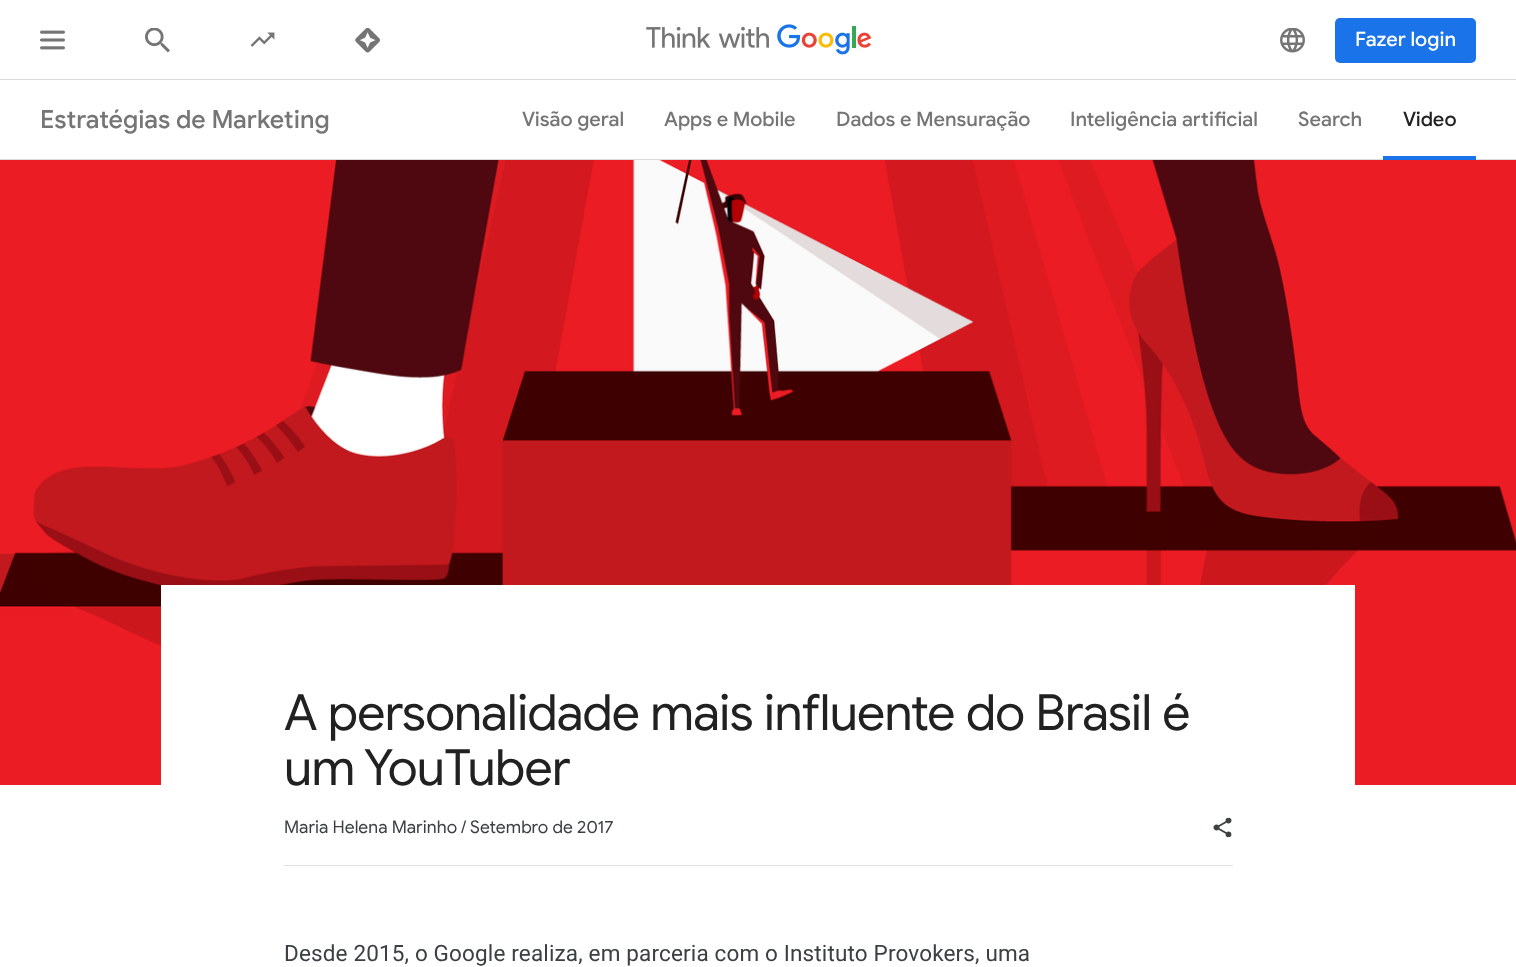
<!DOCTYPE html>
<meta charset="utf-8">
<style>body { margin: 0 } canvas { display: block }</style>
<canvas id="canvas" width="1516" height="967"></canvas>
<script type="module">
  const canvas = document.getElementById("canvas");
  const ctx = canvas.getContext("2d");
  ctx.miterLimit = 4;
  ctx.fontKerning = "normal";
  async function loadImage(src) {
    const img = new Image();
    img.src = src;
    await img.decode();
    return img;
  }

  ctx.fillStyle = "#ffffff";
  ctx.fillRect(0, 0, 1516, 967);
  ctx.drawImage(await loadImage("img1.png"), 40, 30, 25, 20);
  ctx.drawImage(await loadImage("img2.png"), 145, 28, 25, 25);
  ctx.drawImage(await loadImage("img3.png"), 250, 32, 25, 15);
  ctx.drawImage(await loadImage("img4.png"), 355, 28, 25, 25);
  ctx.fillStyle = "#dadce0";
  ctx.fillRect(0, 79, 1516, 1);
  ctx.drawImage(await loadImage("img5.png"), 646, 24, 225, 31);
  ctx.drawImage(await loadImage("img6.png"), 1280, 28, 25, 25);
  ctx.fillStyle = "#1a73e8";
  ctx.beginPath();
  ctx.roundRect(1335, 18, 141, 45, 5);
  ctx.fill();
  ctx.font = "500 20px Google Sans";
  ctx.fillStyle = "#ffffff";
  ctx.fillText("Fazer login", 1355, 46);
  ctx.font = "500 25px Google Sans";
  ctx.fillStyle = "#757575";
  ctx.fillText("Estratégias de Marketing", 40, 128);
  ctx.font = "500 20px Google Sans";
  ctx.fillText("Visão geral", 522, 126);
  ctx.fillText("Apps e Mobile", 664, 126);
  ctx.fillText("Dados e Mensuração", 836, 126);
  ctx.fillText("Inteligência artificial", 1070, 126);
  ctx.fillText("Search", 1298, 126);
  ctx.fillStyle = "#212121";
  ctx.fillText("Video", 1403, 126);
  ctx.fillStyle = "#dadce0";
  ctx.fillRect(0, 159, 1516, 1);
  ctx.fillStyle = "#1a73e8";
  ctx.fillRect(1383, 156, 93, 4);
  ctx.drawImage(await loadImage("img7.png"), 0, 160, 1516, 625);
  ctx.fillStyle = "#ffffff";
  ctx.fillRect(161, 585, 1194, 200);
  ctx.letterSpacing = "-0.6px";
  ctx.font = "50px Google Sans";
  ctx.fillStyle = "#212121";
  ctx.fillText("A personalidade mais influente do Brasil é", 284, 730);
  ctx.fillText("um YouTuber", 284, 785);
  ctx.fillStyle = "#e0e0e0";
  ctx.fillRect(284, 865, 949, 1);
  ctx.letterSpacing = "0.1px";
  ctx.font = "17.5px Google Sans";
  ctx.fillStyle = "#3c4043";
  ctx.fillText("Maria Helena Marinho", 284, 833);
  ctx.fillText("/", 461, 833);
  ctx.fillText("Setembro de 2017", 470, 833);
  ctx.drawImage(await loadImage("img8.png"), 1213, 817, 19, 21);
  ctx.letterSpacing = "0.15px";
  ctx.font = "22.5px Roboto";
  ctx.fillText("Desde 2015, o Google realiza, em parceria com o Instituto Provokers, uma", 284, 961);
</script>
